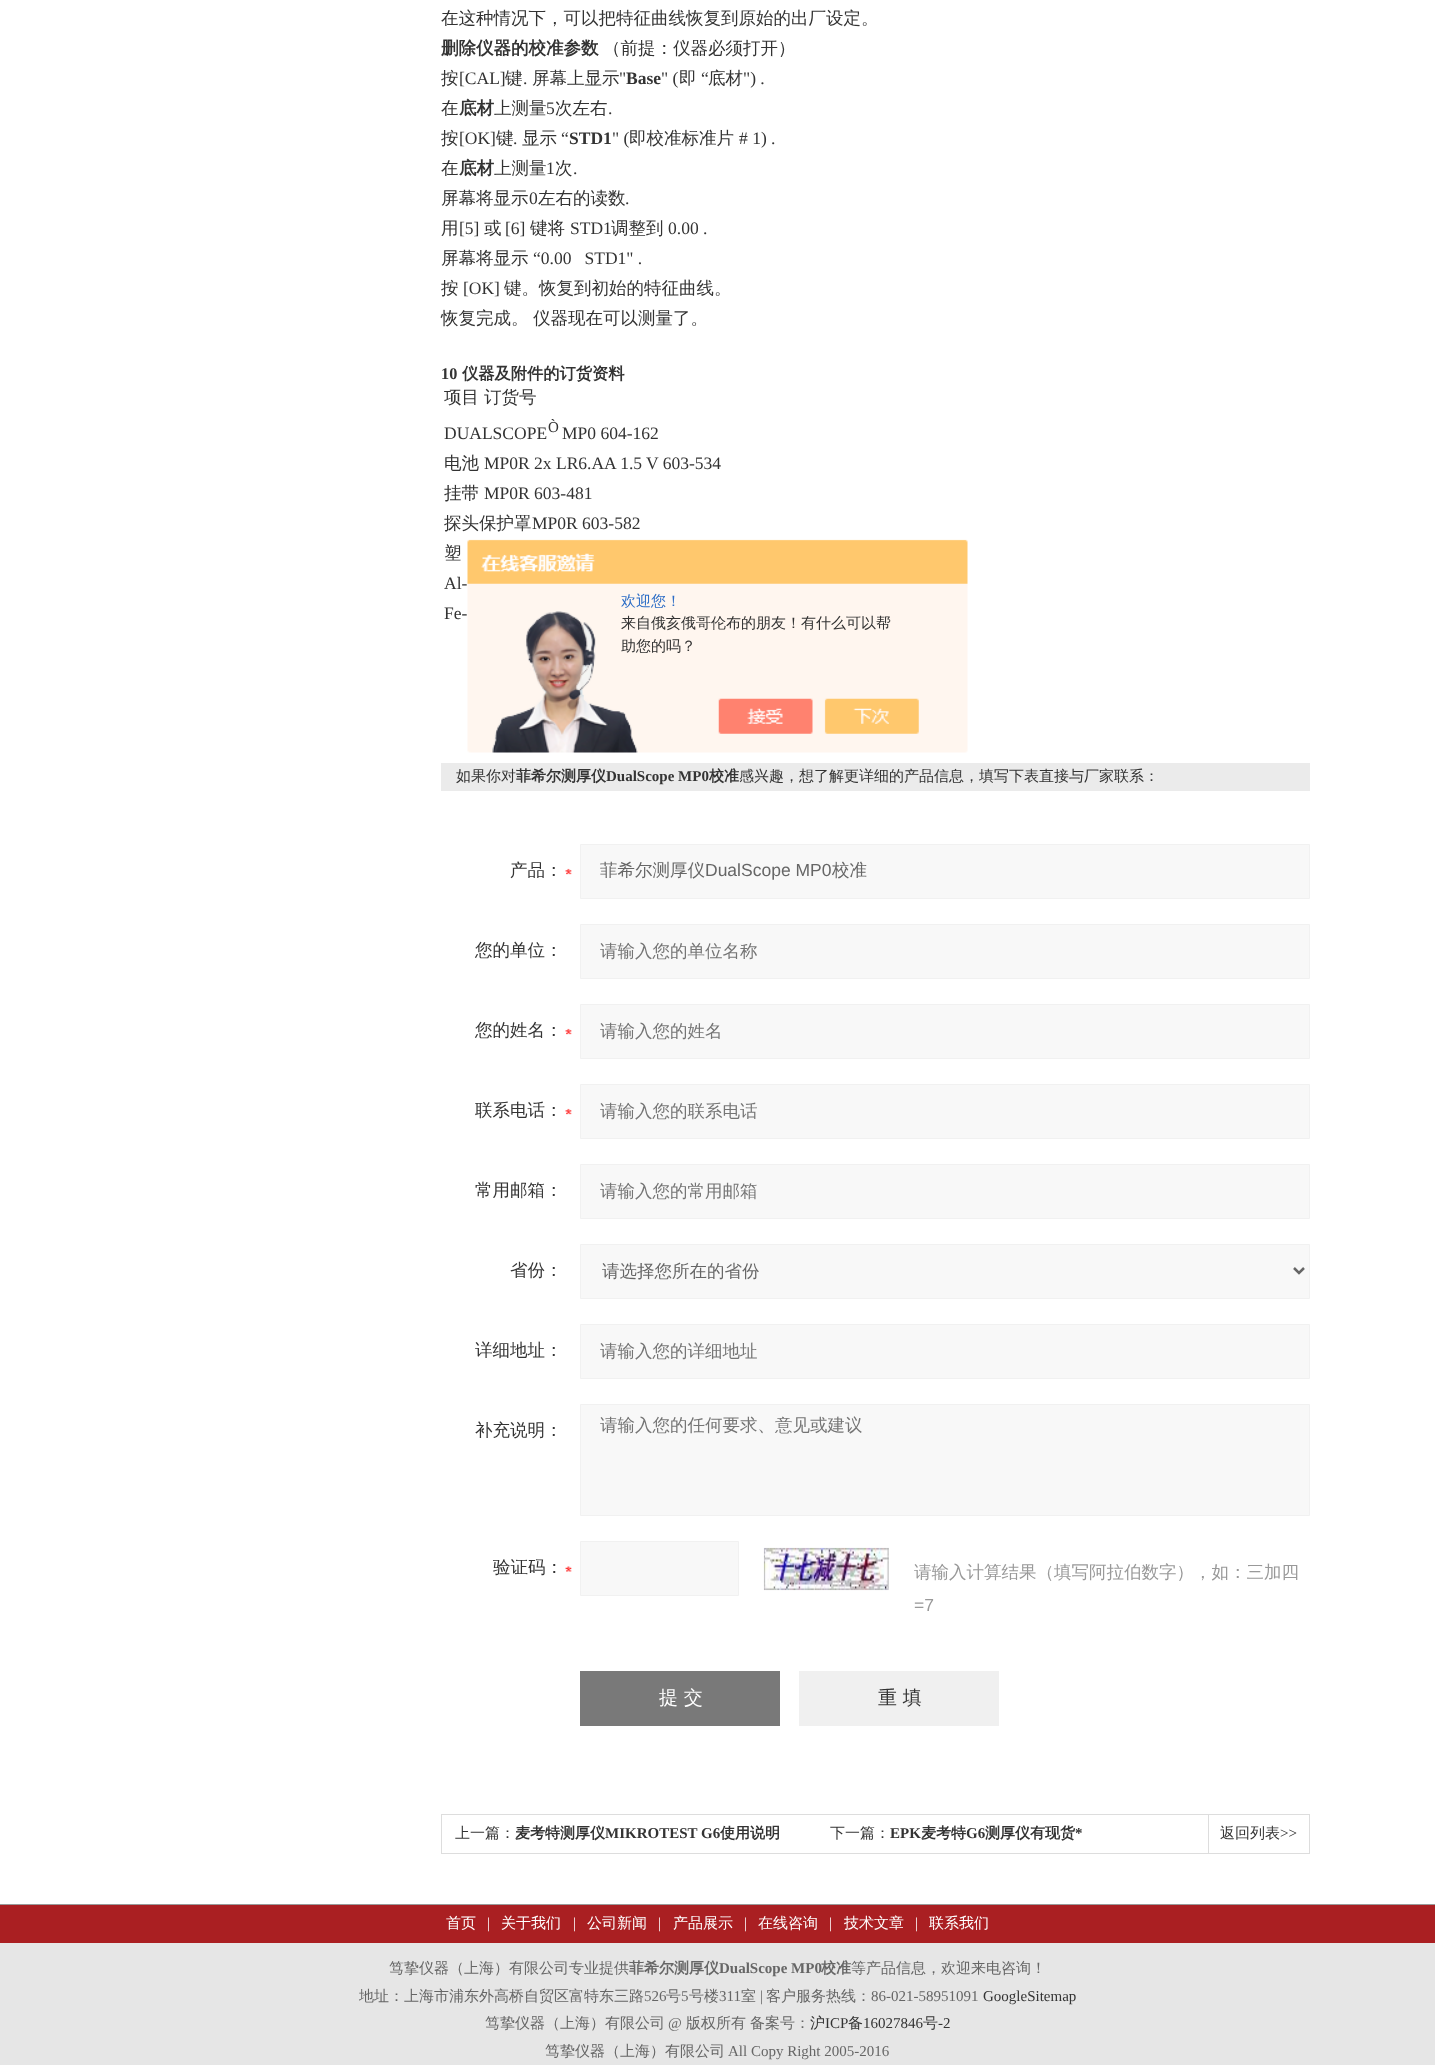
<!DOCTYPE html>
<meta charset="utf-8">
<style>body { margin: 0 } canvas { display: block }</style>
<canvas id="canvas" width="1435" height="2065"></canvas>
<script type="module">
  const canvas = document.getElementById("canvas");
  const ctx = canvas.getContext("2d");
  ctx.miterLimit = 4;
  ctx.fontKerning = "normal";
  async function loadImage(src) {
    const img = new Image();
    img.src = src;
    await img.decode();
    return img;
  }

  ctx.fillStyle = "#ffffff";
  ctx.fillRect(0, 0, 1435, 2065);
  ctx.font = "500 17.5px WenQuanYi Zen Hei";
  ctx.fillStyle = "#333333";
  ctx.fillText("在这种情况下，可以把特征曲线恢复到原始的出厂设定。", 441, 24);
  ctx.font = "bold 17.5px WenQuanYi Zen Hei";
  ctx.fillText("删除仪器的校准参数", 441, 54);
  ctx.font = "500 17.5px WenQuanYi Zen Hei";
  ctx.fillText("（前提：仪器必须打开）", 603, 54);
  ctx.fillText("按", 441, 84);
  ctx.font = "17.5px Liberation Serif";
  ctx.fillText("[CAL]", 459, 84);
  ctx.font = "500 17.5px WenQuanYi Zen Hei";
  ctx.fillText("键", 505, 84);
  ctx.fillText("屏幕上显示", 532, 84);
  ctx.font = "17.5px Liberation Serif";
  ctx.fillText("\"", 619, 84);
  ctx.font = "bold 17.5px Liberation Serif";
  ctx.fillText("Base", 626, 84);
  ctx.font = "17.5px Liberation Serif";
  ctx.fillText("\" (", 661, 84);
  ctx.font = "500 17.5px WenQuanYi Zen Hei";
  ctx.fillText("即", 679, 84);
  ctx.font = "17.5px Liberation Serif";
  ctx.fillText("“", 701, 84);
  ctx.font = "500 17.5px WenQuanYi Zen Hei";
  ctx.fillText("底材", 708, 84);
  ctx.font = "17.5px Liberation Serif";
  ctx.fillText("\") .", 743, 84);
  ctx.fillText(".", 523, 84);
  ctx.font = "500 17.5px WenQuanYi Zen Hei";
  ctx.fillText("在", 441, 114);
  ctx.font = "bold 17.5px WenQuanYi Zen Hei";
  ctx.fillText("底材", 459, 114);
  ctx.font = "500 17.5px WenQuanYi Zen Hei";
  ctx.fillText("上测量", 494, 114);
  ctx.font = "17.5px Liberation Serif";
  ctx.fillText("5", 546, 114);
  ctx.font = "500 17.5px WenQuanYi Zen Hei";
  ctx.fillText("次左右", 555, 114);
  ctx.font = "17.5px Liberation Serif";
  ctx.fillText(".", 608, 114);
  ctx.font = "500 17.5px WenQuanYi Zen Hei";
  ctx.fillText("按", 441, 144);
  ctx.font = "17.5px Liberation Serif";
  ctx.fillText("[OK]", 459, 144);
  ctx.font = "500 17.5px WenQuanYi Zen Hei";
  ctx.fillText("键", 496, 144);
  ctx.font = "17.5px Liberation Serif";
  ctx.fillText(".", 513, 144);
  ctx.font = "500 17.5px WenQuanYi Zen Hei";
  ctx.fillText("显示", 522, 144);
  ctx.font = "17.5px Liberation Serif";
  ctx.fillText("“", 561, 144);
  ctx.font = "bold 17.5px Liberation Serif";
  ctx.fillText("STD1", 569, 144);
  ctx.font = "17.5px Liberation Serif";
  ctx.fillText("\" (", 612, 144);
  ctx.font = "500 17.5px WenQuanYi Zen Hei";
  ctx.fillText("即校准标准片", 629, 144);
  ctx.font = "17.5px Liberation Serif";
  ctx.fillText("# 1) .", 739, 144);
  ctx.font = "500 17.5px WenQuanYi Zen Hei";
  ctx.fillText("在", 441, 174);
  ctx.font = "bold 17.5px WenQuanYi Zen Hei";
  ctx.fillText("底材", 459, 174);
  ctx.font = "500 17.5px WenQuanYi Zen Hei";
  ctx.fillText("上测量", 494, 174);
  ctx.font = "17.5px Liberation Serif";
  ctx.fillText("1", 546, 174);
  ctx.font = "500 17.5px WenQuanYi Zen Hei";
  ctx.fillText("次", 555, 174);
  ctx.font = "17.5px Liberation Serif";
  ctx.fillText(".", 573, 174);
  ctx.font = "500 17.5px WenQuanYi Zen Hei";
  ctx.fillText("屏幕将显示", 441, 204);
  ctx.font = "17.5px Liberation Serif";
  ctx.fillText("0", 529, 204);
  ctx.font = "500 17.5px WenQuanYi Zen Hei";
  ctx.fillText("左右的读数", 538, 204);
  ctx.font = "17.5px Liberation Serif";
  ctx.fillText(".", 625, 204);
  ctx.font = "500 17.5px WenQuanYi Zen Hei";
  ctx.fillText("用", 441, 234);
  ctx.font = "17.5px Liberation Serif";
  ctx.fillText("[5]", 459, 234);
  ctx.font = "500 17.5px WenQuanYi Zen Hei";
  ctx.fillText("或", 484, 234);
  ctx.font = "17.5px Liberation Serif";
  ctx.fillText("[6]", 505, 234);
  ctx.font = "500 17.5px WenQuanYi Zen Hei";
  ctx.fillText("键将", 530, 234);
  ctx.font = "17.5px Liberation Serif";
  ctx.fillText("STD1", 570, 234);
  ctx.font = "500 17.5px WenQuanYi Zen Hei";
  ctx.fillText("调整到", 611, 234);
  ctx.font = "17.5px Liberation Serif";
  ctx.fillText("0.00 .", 668, 234);
  ctx.font = "500 17.5px WenQuanYi Zen Hei";
  ctx.fillText("屏幕将显示", 441, 264);
  ctx.font = "17.5px Liberation Serif";
  ctx.fillText("“0.00   STD1\" .", 533, 264);
  ctx.font = "500 17.5px WenQuanYi Zen Hei";
  ctx.fillText("按", 441, 294);
  ctx.font = "17.5px Liberation Serif";
  ctx.fillText("[OK]", 463, 294);
  ctx.font = "500 17.5px WenQuanYi Zen Hei";
  ctx.fillText("键。恢复到初始的特征曲线。", 504, 294);
  ctx.fillText("恢复完成。", 441, 324);
  ctx.fillText("仪器现在可以测量了。", 533, 324);
  ctx.font = "bold 16.25px Liberation Serif";
  ctx.fillText("10", 441, 379);
  ctx.font = "bold 16.25px WenQuanYi Zen Hei";
  ctx.fillText("仪器及附件的订货资料", 462, 379);
  ctx.font = "500 17.5px WenQuanYi Zen Hei";
  ctx.fillText("项目", 444, 403);
  ctx.fillText("订货号", 484, 403);
  ctx.font = "17.5px Liberation Serif";
  ctx.fillText("DUALSCOPE", 444, 439);
  ctx.font = "15px Liberation Serif";
  ctx.fillText("Ò", 548, 432);
  ctx.font = "17.5px Liberation Serif";
  ctx.fillText("MP0 604-162", 562, 439);
  ctx.font = "500 17.5px WenQuanYi Zen Hei";
  ctx.fillText("电池", 444, 469);
  ctx.font = "17.5px Liberation Serif";
  ctx.fillText("MP0R 2x LR6.AA 1.5 V 603-534", 484, 469);
  ctx.font = "500 17.5px WenQuanYi Zen Hei";
  ctx.fillText("挂带", 444, 499);
  ctx.font = "17.5px Liberation Serif";
  ctx.fillText("MP0R 603-481", 484, 499);
  ctx.font = "500 17.5px WenQuanYi Zen Hei";
  ctx.fillText("探头保护罩", 444, 529);
  ctx.font = "17.5px Liberation Serif";
  ctx.fillText("MP0R 603-582", 532, 529);
  ctx.font = "500 17.5px WenQuanYi Zen Hei";
  ctx.fillText("塑", 444, 559);
  ctx.font = "17.5px Liberation Serif";
  ctx.fillText("Al-", 444, 589);
  ctx.fillText("Fe-", 444, 619);
  ctx.fillStyle = "#ebebeb";
  ctx.fillRect(441, 763, 869, 28);
  ctx.font = "500 15px WenQuanYi Zen Hei";
  ctx.fillStyle = "#333333";
  ctx.fillText("如果你对", 456, 781);
  ctx.font = "bold 15px WenQuanYi Zen Hei";
  ctx.fillText("菲希尔测厚仪", 516, 781);
  ctx.font = "bold 15px Liberation Serif";
  ctx.fillText("DualScope MP0", 606, 781);
  ctx.font = "bold 15px WenQuanYi Zen Hei";
  ctx.fillText("校准", 709, 781);
  ctx.font = "500 15px WenQuanYi Zen Hei";
  ctx.fillText("感兴趣，想了解更详细的产品信息，填写下表直接与厂家联系：", 739, 781);
  ctx.drawImage(await loadImage("img1.png"), 565, 868, 7, 7);
  ctx.font = "500 17.5px WenQuanYi Zen Hei";
  ctx.fillText("产品：", 510, 876);
  ctx.fillStyle = "#f8f8f8";
  ctx.beginPath();
  ctx.rect(580.5, 844.5, 729, 54);
  ctx.fill();
  ctx.strokeStyle = "#f1f1f1";
  ctx.stroke();
  ctx.fillStyle = "#666666";
  ctx.fillText("菲希尔测厚仪", 600, 876);
  ctx.font = "17.5px Liberation Sans";
  ctx.fillText("DualScope MP0", 705, 876);
  ctx.font = "500 17.5px WenQuanYi Zen Hei";
  ctx.fillText("校准", 832, 876);
  ctx.fillStyle = "#333333";
  ctx.fillText("您的单位：", 475, 956);
  ctx.fillStyle = "#f8f8f8";
  ctx.beginPath();
  ctx.rect(580.5, 924.5, 729, 54);
  ctx.fill();
  ctx.stroke();
  ctx.fillStyle = "#757575";
  ctx.fillText("请输入您的单位名称", 600, 957);
  ctx.drawImage(await loadImage("img1.png"), 565, 1028, 7, 7);
  ctx.fillStyle = "#333333";
  ctx.fillText("您的姓名：", 475, 1036);
  ctx.fillStyle = "#f8f8f8";
  ctx.beginPath();
  ctx.rect(580.5, 1004.5, 729, 54);
  ctx.fill();
  ctx.stroke();
  ctx.fillStyle = "#757575";
  ctx.fillText("请输入您的姓名", 600, 1037);
  ctx.drawImage(await loadImage("img1.png"), 565, 1108, 7, 7);
  ctx.fillStyle = "#333333";
  ctx.fillText("联系电话：", 475, 1116);
  ctx.fillStyle = "#f8f8f8";
  ctx.beginPath();
  ctx.rect(580.5, 1084.5, 729, 54);
  ctx.fill();
  ctx.stroke();
  ctx.fillStyle = "#757575";
  ctx.fillText("请输入您的联系电话", 600, 1117);
  ctx.fillStyle = "#333333";
  ctx.fillText("常用邮箱：", 475, 1196);
  ctx.fillStyle = "#f8f8f8";
  ctx.beginPath();
  ctx.rect(580.5, 1164.5, 729, 54);
  ctx.fill();
  ctx.stroke();
  ctx.fillStyle = "#757575";
  ctx.fillText("请输入您的常用邮箱", 600, 1197);
  ctx.fillStyle = "#333333";
  ctx.fillText("省份：", 510, 1276);
  ctx.fillStyle = "#f8f8f8";
  ctx.beginPath();
  ctx.rect(580.5, 1244.5, 729, 54);
  ctx.fill();
  ctx.stroke();
  ctx.beginPath();
  ctx.moveTo(1294, 1268);
  ctx.lineTo(1299, 1273);
  ctx.lineTo(1304, 1268);
  ctx.strokeStyle = "#666666";
  ctx.lineWidth = 2.5;
  ctx.stroke();
  ctx.fillStyle = "#666666";
  ctx.fillText("请选择您所在的省份", 602, 1277);
  ctx.fillStyle = "#333333";
  ctx.fillText("详细地址：", 475, 1356);
  ctx.fillStyle = "#f8f8f8";
  ctx.beginPath();
  ctx.rect(580.5, 1324.5, 729, 54);
  ctx.fill();
  ctx.strokeStyle = "#f1f1f1";
  ctx.lineWidth = 1;
  ctx.stroke();
  ctx.fillStyle = "#757575";
  ctx.fillText("请输入您的详细地址", 600, 1357);
  ctx.fillStyle = "#333333";
  ctx.fillText("补充说明：", 475, 1436);
  ctx.fillStyle = "#f8f8f8";
  ctx.beginPath();
  ctx.rect(580.5, 1404.5, 729, 111);
  ctx.fill();
  ctx.stroke();
  ctx.fillStyle = "#757575";
  ctx.fillText("请输入您的任何要求、意见或建议", 600, 1431);
  ctx.drawImage(await loadImage("img2.png"), 565, 1566, 7, 6);
  ctx.fillStyle = "#333333";
  ctx.fillText("验证码：", 493, 1573);
  ctx.fillStyle = "#f8f8f8";
  ctx.beginPath();
  ctx.rect(580.5, 1541.5, 158, 54);
  ctx.fill();
  ctx.stroke();
  ctx.drawImage(await loadImage("img3.png"), 763, 1547, 126, 44);
  ctx.fillStyle = "#999999";
  ctx.fillText("请输入计算结果（填写阿拉伯数字），如：三加四", 914, 1578);
  ctx.font = "17.5px Liberation Sans";
  ctx.fillText("=7", 914, 1611);
  ctx.fillStyle = "#797979";
  ctx.fillRect(580, 1671, 200, 55);
  ctx.font = "500 19px WenQuanYi Zen Hei";
  ctx.fillStyle = "#ffffff";
  ctx.fillText("提 交", 659, 1704);
  ctx.fillStyle = "#f0f0f0";
  ctx.fillRect(799, 1671, 200, 55);
  ctx.fillStyle = "#333333";
  ctx.fillText("重 填", 878, 1704);
  ctx.strokeStyle = "#dddddd";
  ctx.strokeRect(441.5, 1814.5, 868, 39);
  ctx.font = "500 15px WenQuanYi Zen Hei";
  ctx.fillText("上一篇：", 455, 1838);
  ctx.font = "bold 15px WenQuanYi Zen Hei";
  ctx.fillText("麦考特测厚仪", 515, 1838);
  ctx.font = "bold 15px Liberation Serif";
  ctx.fillText("MIKROTEST G6", 605, 1838);
  ctx.font = "bold 15px WenQuanYi Zen Hei";
  ctx.fillText("使用说明", 720, 1838);
  ctx.font = "500 15px WenQuanYi Zen Hei";
  ctx.fillText("下一篇：", 830, 1838);
  ctx.font = "bold 15px Liberation Serif";
  ctx.fillText("EPK", 890, 1838);
  ctx.font = "bold 15px WenQuanYi Zen Hei";
  ctx.fillText("麦考特", 921, 1838);
  ctx.font = "bold 15px Liberation Serif";
  ctx.fillText("G6", 966, 1838);
  ctx.font = "bold 15px WenQuanYi Zen Hei";
  ctx.fillText("测厚仪有现货", 985, 1838);
  ctx.font = "bold 15px Liberation Serif";
  ctx.fillText("*", 1075, 1838);
  ctx.fillStyle = "#dddddd";
  ctx.fillRect(1208, 1815, 1, 38);
  ctx.font = "500 15px WenQuanYi Zen Hei";
  ctx.fillStyle = "#333333";
  ctx.fillText("返回列表", 1220, 1838);
  ctx.font = "15px Liberation Serif";
  ctx.fillText(">>", 1280, 1838);
  ctx.fillStyle = "#e6e6e6";
  ctx.fillRect(0, 1943, 1435, 122);
  ctx.fillStyle = "#999999";
  ctx.fillRect(0, 1904, 1435, 1);
  ctx.fillStyle = "#aa1f22";
  ctx.fillRect(0, 1905, 1435, 38);
  ctx.font = "500 15px WenQuanYi Zen Hei";
  ctx.fillStyle = "#ffffff";
  ctx.fillText("首页", 446, 1928);
  ctx.font = "15px Liberation Serif";
  ctx.fillText("|", 487, 1928);
  ctx.font = "500 15px WenQuanYi Zen Hei";
  ctx.fillText("关于我们", 501, 1928);
  ctx.font = "15px Liberation Serif";
  ctx.fillText("|", 573, 1928);
  ctx.font = "500 15px WenQuanYi Zen Hei";
  ctx.fillText("公司新闻", 587, 1928);
  ctx.font = "15px Liberation Serif";
  ctx.fillText("|", 658, 1928);
  ctx.font = "500 15px WenQuanYi Zen Hei";
  ctx.fillText("产品展示", 673, 1928);
  ctx.font = "15px Liberation Serif";
  ctx.fillText("|", 744, 1928);
  ctx.font = "500 15px WenQuanYi Zen Hei";
  ctx.fillText("在线咨询", 758, 1928);
  ctx.font = "15px Liberation Serif";
  ctx.fillText("|", 829, 1928);
  ctx.font = "500 15px WenQuanYi Zen Hei";
  ctx.fillText("技术文章", 844, 1928);
  ctx.font = "15px Liberation Serif";
  ctx.fillText("|", 915, 1928);
  ctx.font = "500 15px WenQuanYi Zen Hei";
  ctx.fillText("联系我们", 929, 1928);
  ctx.fillStyle = "#666666";
  ctx.fillText("笃挚仪器（上海）有限公司专业提供", 389, 1973);
  ctx.font = "bold 15px WenQuanYi Zen Hei";
  ctx.fillText("菲希尔测厚仪", 629, 1973);
  ctx.font = "bold 15px Liberation Serif";
  ctx.fillText("DualScope MP0", 719, 1973);
  ctx.font = "bold 15px WenQuanYi Zen Hei";
  ctx.fillText("校准", 821, 1973);
  ctx.font = "500 15px WenQuanYi Zen Hei";
  ctx.fillText("等产品信息，欢迎来电咨询！", 851, 1973);
  ctx.fillText("地址：上海市浦东外高桥自贸区富特东三路", 359, 2001);
  ctx.font = "15px Liberation Serif";
  ctx.fillText("526", 644, 2001);
  ctx.font = "500 15px WenQuanYi Zen Hei";
  ctx.fillText("号", 666, 2001);
  ctx.font = "15px Liberation Serif";
  ctx.fillText("5", 681, 2001);
  ctx.font = "500 15px WenQuanYi Zen Hei";
  ctx.fillText("号楼", 689, 2001);
  ctx.font = "15px Liberation Serif";
  ctx.fillText("311", 719, 2001);
  ctx.font = "500 15px WenQuanYi Zen Hei";
  ctx.fillText("室", 741, 2001);
  ctx.font = "15px Liberation Serif";
  ctx.fillText("|", 760, 2001);
  ctx.font = "500 15px WenQuanYi Zen Hei";
  ctx.fillText("客户服务热线：", 766, 2001);
  ctx.font = "15px Liberation Serif";
  ctx.fillText("86-021-58951091", 871, 2001);
  ctx.fillStyle = "#333333";
  ctx.fillText("GoogleSitemap", 983, 2001);
  ctx.font = "500 15px WenQuanYi Zen Hei";
  ctx.fillStyle = "#666666";
  ctx.fillText("笃挚仪器（上海）有限公司", 485, 2028);
  ctx.font = "15px Liberation Serif";
  ctx.fillText("@", 668, 2028);
  ctx.font = "500 15px WenQuanYi Zen Hei";
  ctx.fillText("版权所有", 686, 2028);
  ctx.fillText("备案号：", 750, 2028);
  ctx.fillStyle = "#333333";
  ctx.fillText("沪", 810, 2028);
  ctx.font = "15px Liberation Serif";
  ctx.fillText("ICP", 825, 2028);
  ctx.font = "500 15px WenQuanYi Zen Hei";
  ctx.fillText("备", 848, 2028);
  ctx.font = "15px Liberation Serif";
  ctx.fillText("16027846", 863, 2028);
  ctx.font = "500 15px WenQuanYi Zen Hei";
  ctx.fillText("号", 923, 2028);
  ctx.font = "15px Liberation Serif";
  ctx.fillText("-2", 938, 2028);
  ctx.font = "500 15px WenQuanYi Zen Hei";
  ctx.fillStyle = "#666666";
  ctx.fillText("笃挚仪器（上海）有限公司", 545, 2056);
  ctx.font = "15px Liberation Serif";
  ctx.fillText("All Copy Right 2005-2016", 728, 2056);
  ctx.drawImage(await loadImage("img4.png"), 467, 539, 501, 214);
  ctx.font = "500 15px WenQuanYi Zen Hei";
  ctx.fillStyle = "#2e6ec6";
  ctx.fillText("欢迎您！", 621, 606);
  ctx.fillStyle = "#333333";
  ctx.fillText("来自俄亥俄哥伦布的朋友！有什么可以帮", 621, 628);
  ctx.fillText("助您的吗？", 621, 651);
</script>
